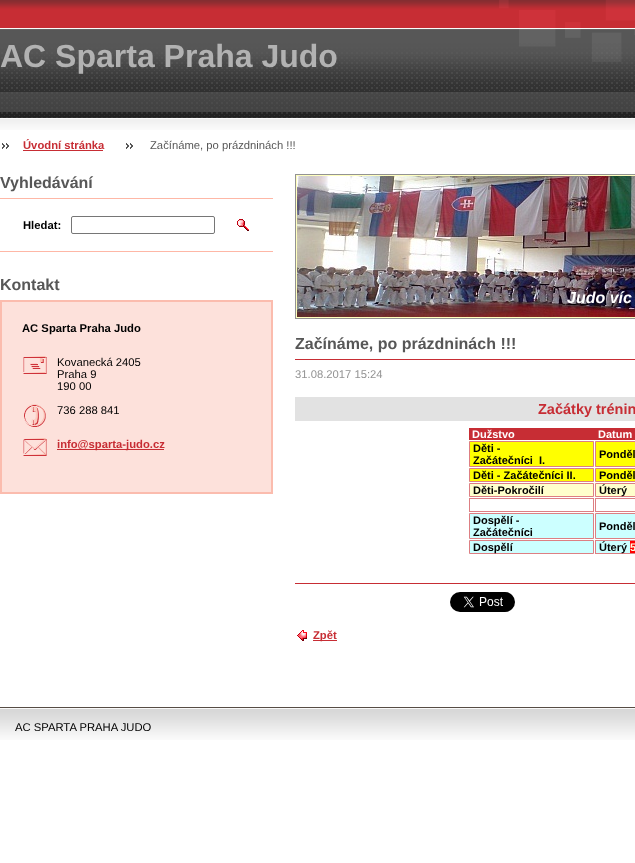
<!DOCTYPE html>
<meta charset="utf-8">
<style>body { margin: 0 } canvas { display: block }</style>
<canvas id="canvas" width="635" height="863"></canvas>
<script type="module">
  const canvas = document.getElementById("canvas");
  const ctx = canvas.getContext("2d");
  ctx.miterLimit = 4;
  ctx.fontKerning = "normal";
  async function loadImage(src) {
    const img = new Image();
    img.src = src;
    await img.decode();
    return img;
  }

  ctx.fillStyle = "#ffffff";
  ctx.fillRect(0, 0, 635, 863);
  ctx.drawImage(await loadImage("img1.png"), 0, 0, 635, 118);
  ctx.font = "bold 32px Liberation Sans";
  ctx.fillStyle = "#b2b2b2";
  ctx.fillText("AC Sparta Praha Judo", 0, 67);
  ctx.drawImage(await loadImage("img2.png"), 0, 118, 635, 12);
  ctx.drawImage(await loadImage("img3.png"), 2, 143, 7, 6);
  ctx.font = "bold 11.25px Liberation Sans";
  ctx.fillStyle = "#c72d34";
  ctx.fillText("Úvodní stránka", 23, 149);
  ctx.fillRect(23, 150, 80, 1);
  ctx.drawImage(await loadImage("img3.png"), 126, 143, 7, 6);
  ctx.font = "11.25px Liberation Sans";
  ctx.fillStyle = "#575757";
  ctx.fillText("Začínáme, po prázdninách !!!", 150, 149);
  ctx.font = "bold 16px Liberation Sans";
  ctx.fillText("Vyhledávání", 0, 188);
  ctx.fillStyle = "#feb7a6";
  ctx.fillRect(0, 198, 273, 1);
  ctx.fillRect(0, 251, 273, 1);
  ctx.font = "bold 11.25px Liberation Sans";
  ctx.fillStyle = "#000000";
  ctx.fillText("Hledat:", 23, 229);
  ctx.beginPath();
  ctx.roundRect(71.5, 216.5, 143, 17, 1.5);
  ctx.strokeStyle = "#767676";
  ctx.stroke();
  ctx.drawImage(await loadImage("img4.png"), 237, 219, 12, 12);
  ctx.font = "bold 16px Liberation Sans";
  ctx.fillStyle = "#575757";
  ctx.fillText("Kontakt", 0, 290);
  ctx.fillStyle = "#fde1db";
  ctx.beginPath();
  ctx.rect(1, 301, 271, 192);
  ctx.fill();
  ctx.strokeStyle = "#fbbcae";
  ctx.lineWidth = 2;
  ctx.stroke();
  ctx.font = "bold 11.25px Liberation Sans";
  ctx.fillStyle = "#000000";
  ctx.fillText("AC Sparta Praha Judo", 22, 332);
  ctx.drawImage(await loadImage("img5.png"), 23, 356, 24, 18);
  ctx.font = "11.25px Liberation Sans";
  ctx.fillText("Kovanecká 2405", 57, 366);
  ctx.fillText("Praha 9", 57, 378);
  ctx.fillText("190 00", 57, 390);
  ctx.drawImage(await loadImage("img6.png"), 24, 404, 22, 23);
  ctx.fillText("736 288 841", 57, 414);
  ctx.drawImage(await loadImage("img7.png"), 23, 438, 24, 18);
  ctx.fillStyle = "#c72d34";
  ctx.fillRect(57, 449, 107, 1);
  ctx.font = "bold 11.25px Liberation Sans";
  ctx.fillText("info@sparta-judo.cz", 57, 448);
  ctx.strokeStyle = "#939393";
  ctx.lineWidth = 1;
  ctx.strokeRect(295.5, 174.5, 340, 144);
  ctx.strokeStyle = "#ffffbe";
  ctx.strokeRect(296.5, 175.5, 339, 142);
  ctx.drawImage(await loadImage("img8.png"), 297, 176, 338, 141);
  ctx.font = "italic bold 16px Liberation Sans";
  ctx.fillStyle = "#ffffff";
  ctx.fillText("Judo víc", 567, 303);
  ctx.font = "bold 16px Liberation Sans";
  ctx.fillStyle = "#575757";
  ctx.fillText("Začínáme, po prázdninách !!!", 295, 349);
  ctx.fillStyle = "#c72d34";
  ctx.fillRect(295, 359, 340, 1);
  ctx.fillRect(295, 583, 340, 1);
  ctx.font = "11.25px Liberation Sans";
  ctx.fillStyle = "#939393";
  ctx.fillText("31.08.2017 15:24", 295, 378);
  ctx.fillStyle = "#e2e2e2";
  ctx.fillRect(295, 397, 340, 24);
  ctx.font = "bold 14.5px Liberation Sans";
  ctx.fillStyle = "#c72d34";
  ctx.fillText("Začátky trénin", 538, 414);
  ctx.fillRect(469, 428, 166, 12);
  ctx.font = "bold 11px Liberation Sans";
  ctx.fillStyle = "#ffffff";
  ctx.fillText("Dužstvo", 472, 438);
  ctx.fillText("Datum", 598, 438);
  ctx.fillStyle = "#ffff00";
  ctx.beginPath();
  ctx.rect(469.5, 441.5, 124, 25);
  ctx.fill();
  ctx.strokeStyle = "#dd7f83";
  ctx.stroke();
  ctx.fillStyle = "#000000";
  ctx.fillText("Děti -", 473, 452);
  ctx.fillText("Začátečníci  I.", 473, 464);
  ctx.fillStyle = "#ffff00";
  ctx.beginPath();
  ctx.rect(595.5, 441.5, 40, 25);
  ctx.fill();
  ctx.stroke();
  ctx.fillStyle = "#000000";
  ctx.fillText("Ponděl", 599, 458);
  ctx.fillStyle = "#ffff00";
  ctx.beginPath();
  ctx.rect(469.5, 468.5, 124, 13);
  ctx.fill();
  ctx.stroke();
  ctx.fillStyle = "#000000";
  ctx.fillText("Děti - Začátečníci II.", 473, 479);
  ctx.fillStyle = "#ffff00";
  ctx.beginPath();
  ctx.rect(595.5, 468.5, 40, 13);
  ctx.fill();
  ctx.stroke();
  ctx.fillStyle = "#000000";
  ctx.fillText("Ponděl", 599, 479);
  ctx.fillStyle = "#ffffcc";
  ctx.beginPath();
  ctx.rect(469.5, 483.5, 124, 13);
  ctx.fill();
  ctx.stroke();
  ctx.fillStyle = "#000000";
  ctx.fillText("Děti-Pokročilí", 473, 494);
  ctx.fillStyle = "#ffffcc";
  ctx.beginPath();
  ctx.rect(595.5, 483.5, 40, 13);
  ctx.fill();
  ctx.stroke();
  ctx.fillStyle = "#000000";
  ctx.fillText("Úterý", 599, 494);
  ctx.strokeRect(469.5, 498.5, 124, 13);
  ctx.strokeRect(595.5, 498.5, 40, 13);
  ctx.fillStyle = "#ccffff";
  ctx.beginPath();
  ctx.rect(469.5, 513.5, 124, 25);
  ctx.fill();
  ctx.stroke();
  ctx.fillStyle = "#000000";
  ctx.fillText("Dospělí -", 473, 524);
  ctx.fillText("Začátečníci", 473, 536);
  ctx.fillStyle = "#ccffff";
  ctx.beginPath();
  ctx.rect(595.5, 513.5, 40, 25);
  ctx.fill();
  ctx.stroke();
  ctx.fillStyle = "#000000";
  ctx.fillText("Ponděl", 599, 530);
  ctx.fillStyle = "#ccffff";
  ctx.beginPath();
  ctx.rect(469.5, 540.5, 124, 13);
  ctx.fill();
  ctx.stroke();
  ctx.fillStyle = "#000000";
  ctx.fillText("Dospělí", 473, 551);
  ctx.fillStyle = "#ccffff";
  ctx.fillRect(596, 541, 34, 12);
  ctx.strokeRect(595.5, 540.5, 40, 13);
  ctx.fillStyle = "#000000";
  ctx.fillText("Úterý", 599, 551);
  ctx.fillStyle = "#ff0000";
  ctx.fillRect(630, 541, 5, 12);
  ctx.fillStyle = "#ffffe0";
  ctx.fillText("5", 630, 551);
  ctx.drawImage(await loadImage("img9.png"), 450, 592, 65, 20);
  ctx.drawImage(await loadImage("img10.png"), 297, 630, 10, 11);
  ctx.fillStyle = "#c72d34";
  ctx.fillRect(313, 640, 24, 1);
  ctx.font = "bold 11.25px Liberation Sans";
  ctx.fillText("Zpět", 313, 639);
  ctx.drawImage(await loadImage("img11.png"), 0, 707, 635, 33);
  ctx.font = "11.25px Liberation Sans";
  ctx.fillStyle = "#000000";
  ctx.fillText("AC SPARTA PRAHA JUDO", 15, 731);
</script>
